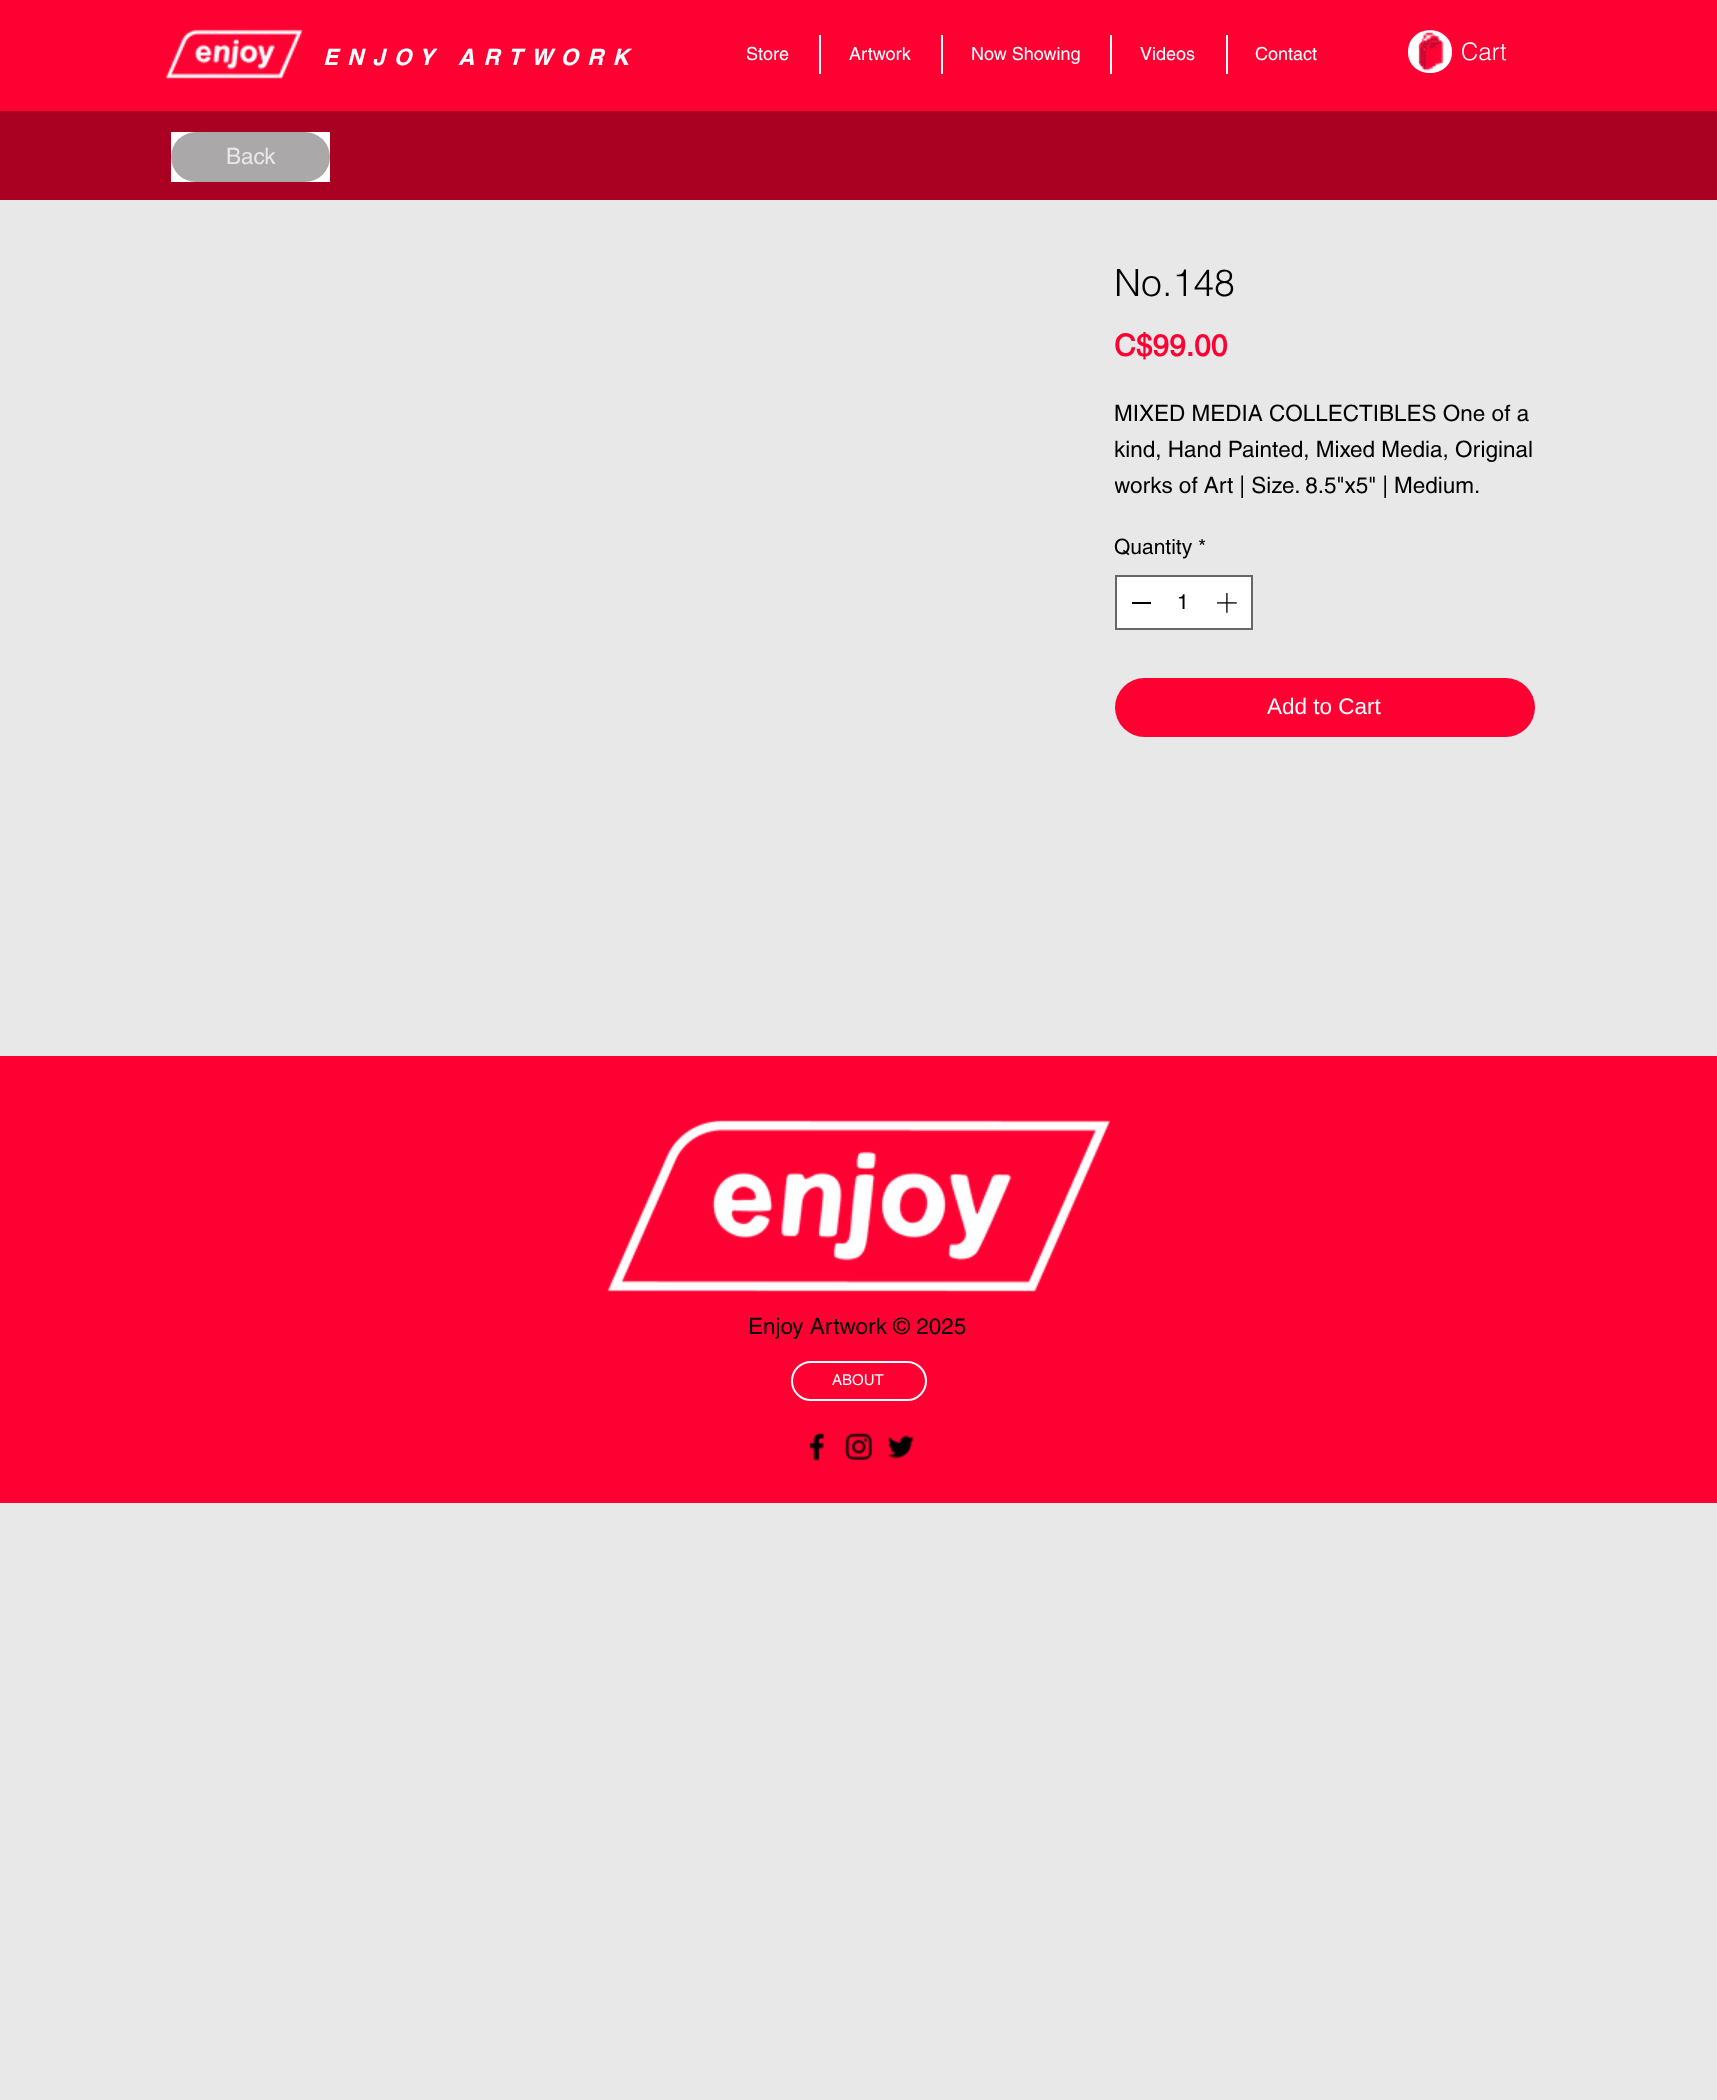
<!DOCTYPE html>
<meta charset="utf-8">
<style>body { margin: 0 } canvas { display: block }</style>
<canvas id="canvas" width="1717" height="2100"></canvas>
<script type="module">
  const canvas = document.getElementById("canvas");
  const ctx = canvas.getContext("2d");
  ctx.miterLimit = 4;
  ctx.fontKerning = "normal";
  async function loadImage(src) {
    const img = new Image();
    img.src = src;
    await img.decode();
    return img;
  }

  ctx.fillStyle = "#e8e8e8";
  ctx.fillRect(0, 0, 1717, 2100);
  ctx.fillStyle = "#ff0033";
  ctx.fillRect(0, 0, 1717, 111);
  ctx.drawImage(await loadImage("img1.png"), 165, 29, 139, 50);
  ctx.fillStyle = "#ffffff";
  ctx.beginPath();
  ctx.moveTo(1452, 52);
  ctx.bezierCurveTo(1452, 80, 1408, 80, 1408, 52);
  ctx.bezierCurveTo(1408, 23, 1452, 23, 1452, 52);
  ctx.closePath();
  ctx.fill();
  ctx.letterSpacing = "9px";
  ctx.font = "italic bold 22.5px helvetica";
  ctx.fillText("ENJOY ARTWORK", 323, 65);
  ctx.letterSpacing = "0px";
  ctx.font = "18px helvetica";
  ctx.fillText("Store", 746, 60);
  ctx.fillRect(819, 35, 2, 39);
  ctx.fillText("Artwork", 849, 60);
  ctx.fillRect(941, 35, 2, 39);
  ctx.fillText("Now Showing", 971, 60);
  ctx.fillRect(1110, 35, 2, 39);
  ctx.fillText("Videos", 1140, 60);
  ctx.fillRect(1226, 35, 2, 39);
  ctx.fillText("Contact", 1255, 60);
  ctx.drawImage(await loadImage("img2.png"), 1418, 31, 26, 40);
  ctx.font = "300 24px helvetica";
  ctx.fillText("Cart", 1461, 60);
  ctx.fillStyle = "#aa0022";
  ctx.fillRect(0, 111, 1717, 89);
  ctx.fillStyle = "#ffffff";
  ctx.fillRect(171, 132, 159, 50);
  ctx.fillStyle = "#aaa8a8";
  ctx.beginPath();
  ctx.roundRect(171, 132, 159, 50, 25);
  ctx.fill();
  ctx.font = "22.5px helvetica";
  ctx.fillStyle = "#e8e8e8";
  ctx.fillText("Back", 226, 164);
  ctx.font = "300 37.5px helvetica";
  ctx.fillStyle = "#000000";
  ctx.fillText("No.148", 1114, 296);
  ctx.font = "bold 30px helvetica";
  ctx.fillStyle = "#ff0033";
  ctx.fillText("C$99.00", 1114, 356);
  ctx.font = "22.5px helvetica";
  ctx.fillStyle = "#000000";
  ctx.fillText("MIXED MEDIA COLLECTIBLES One of a", 1114, 421);
  ctx.fillText("kind, Hand Painted, Mixed Media, Original", 1114, 457);
  ctx.save();
  ctx.beginPath();
  ctx.rect(1115, 396, 420, 108);
  ctx.clip();
  ctx.wordSpacing = "-0.25px";
  ctx.fillText("works of Art | Size. 8.5\"x5\" | Medium.", 1114, 493);
  ctx.restore();
  ctx.font = "21px helvetica";
  ctx.fillText("Quantity *", 1114, 554);
  ctx.fillStyle = "#ffffff";
  ctx.beginPath();
  ctx.rect(1116, 576, 136, 53);
  ctx.fill();
  ctx.strokeStyle = "#666666";
  ctx.lineWidth = 2;
  ctx.stroke();
  ctx.fillStyle = "#000000";
  ctx.fillRect(1132, 602, 19, 2);
  ctx.fillText("1", 1177, 609);
  ctx.drawImage(await loadImage("img3.png"), 1217, 593, 20, 20);
  ctx.fillStyle = "#ff0033";
  ctx.beginPath();
  ctx.roundRect(1115, 678, 420, 59, 29.5);
  ctx.fill();
  ctx.font = "22.5px Liberation Sans";
  ctx.fillStyle = "#ffffff";
  ctx.fillText("Add to Cart", 1267, 714);
  ctx.fillStyle = "#ff0033";
  ctx.fillRect(0, 1056, 1717, 447);
  ctx.drawImage(await loadImage("img4.png"), 607, 1120, 503, 172);
  ctx.font = "22.5px helvetica";
  ctx.fillStyle = "#000000";
  ctx.fillText("Enjoy Artwork © 2025", 748, 1334);
  ctx.beginPath();
  ctx.roundRect(792, 1362, 134, 38, 19);
  ctx.strokeStyle = "#ffffff";
  ctx.stroke();
  ctx.font = "15px helvetica";
  ctx.fillStyle = "#ffffff";
  ctx.fillText("ABOUT", 832, 1385);
  ctx.drawImage(await loadImage("img5.png"), 808, 1432, 17, 30);
  ctx.drawImage(await loadImage("img6.png"), 844, 1432, 29, 29);
  ctx.drawImage(await loadImage("img7.png"), 887, 1435, 27, 24);
</script>
